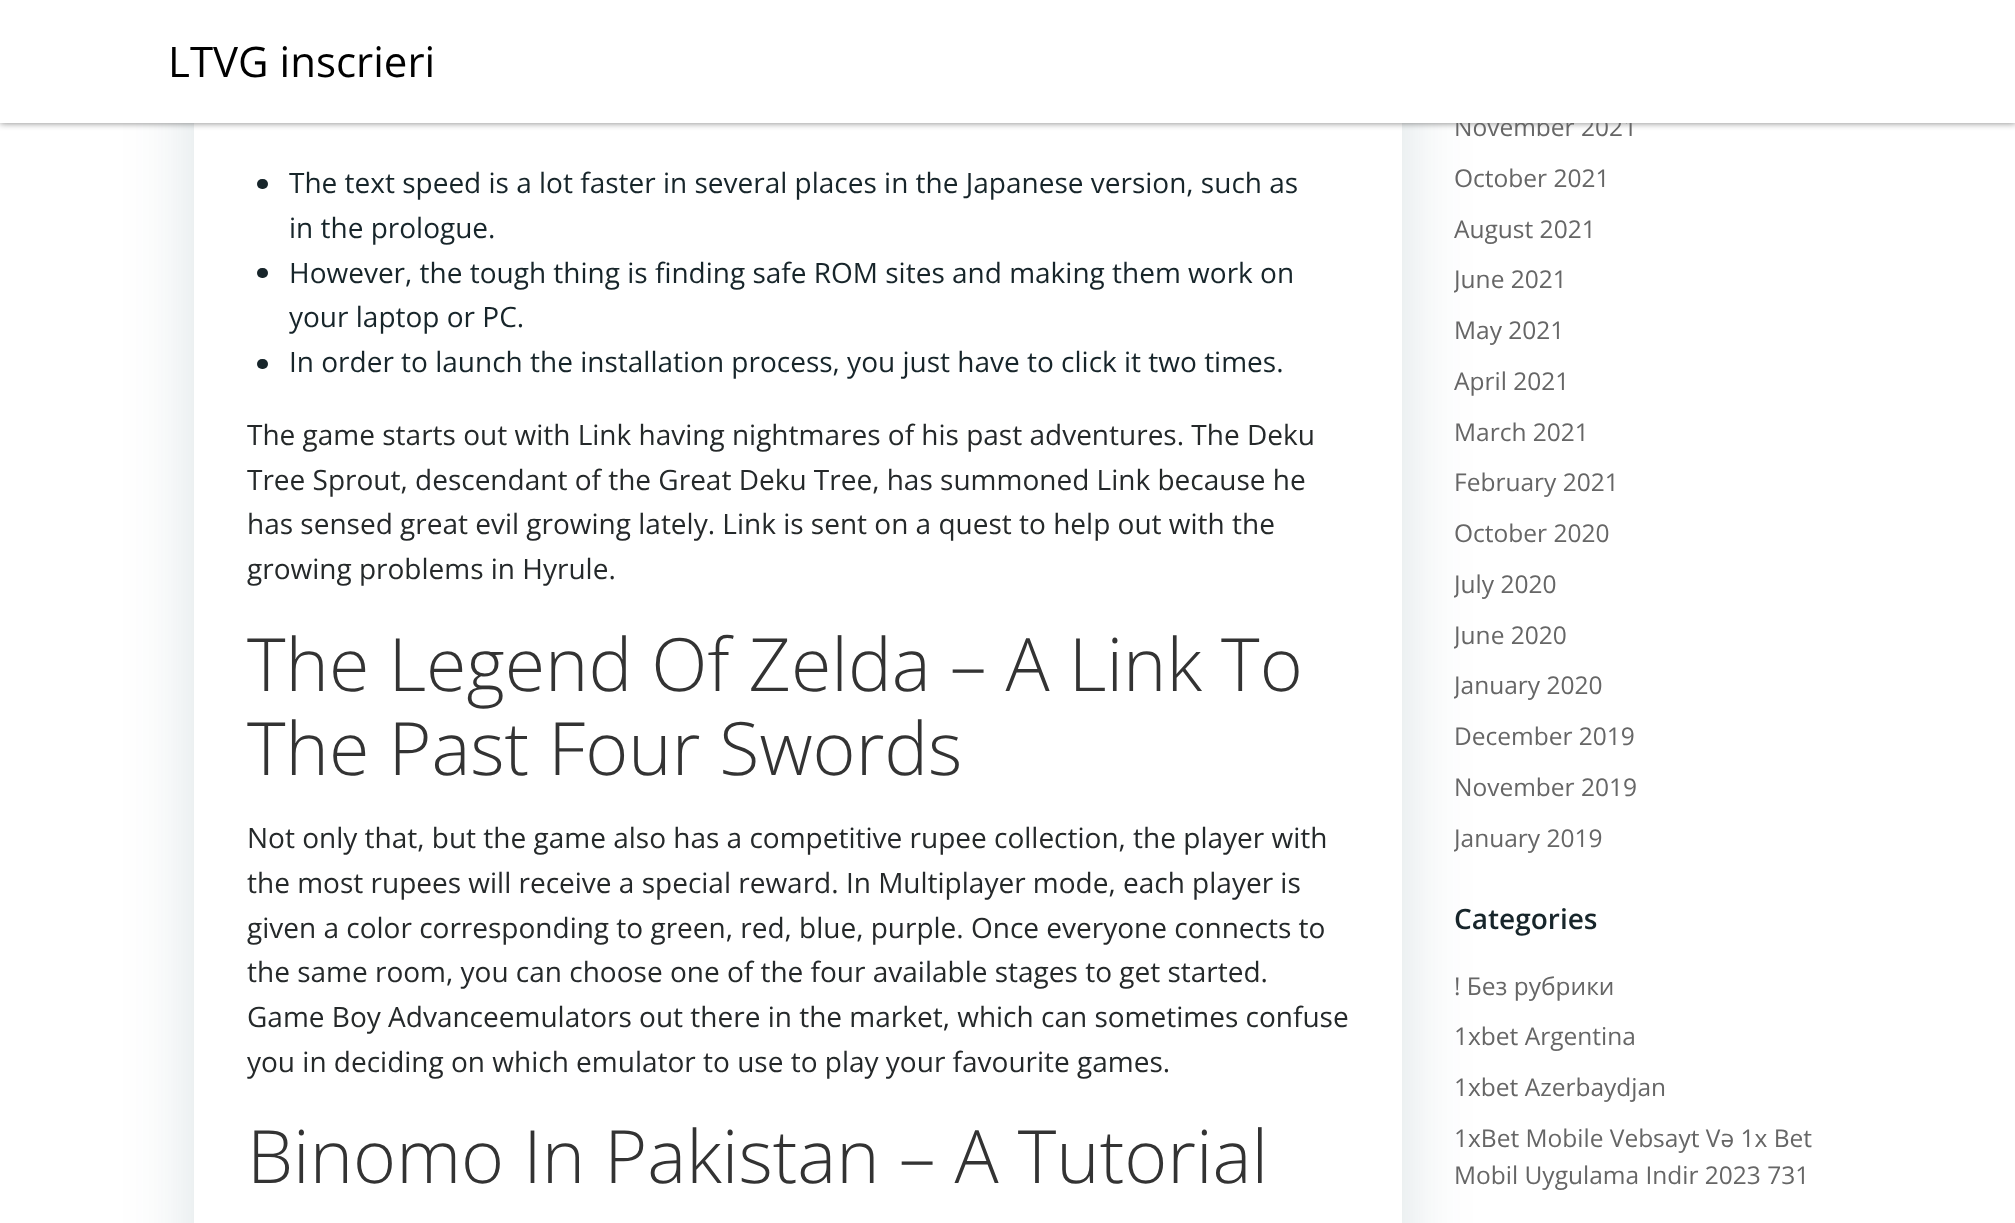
<!DOCTYPE html>
<meta charset="utf-8">
<style>body { margin: 0 } canvas { display: block }</style>
<canvas id="canvas" width="2015" height="1223"></canvas>
<script type="module">
  const canvas = document.getElementById("canvas");
  const ctx = canvas.getContext("2d");
  ctx.miterLimit = 4;
  ctx.fontKerning = "normal";

  ctx.fillStyle = "#ffffff";
  ctx.fillRect(0, 0, 2015, 1223);
  ctx.fillStyle = "rgba(1, 51, 74, 0.15)";
  ctx.filter = "blur(35px)";
  ctx.beginPath();
  ctx.roundRect(194, -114, 1208, 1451, 9);
  ctx.fill();
  ctx.filter = "none";
  ctx.fillStyle = "#ffffff";
  ctx.fillRect(194, 123, 1208, 1100);
  ctx.fillStyle = "rgba(0, 0, 0, 0.5)";
  ctx.filter = "blur(3.5px)";
  ctx.beginPath();
  ctx.rect(0, 0, 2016, 123);
  ctx.fill();
  ctx.filter = "none";
  ctx.font = "24.5px Open Sans";
  ctx.fillStyle = "#666666";
  ctx.fillText("November 2021", 1454, 136);
  ctx.fillStyle = "#ffffff";
  ctx.fillRect(0, 0, 2015, 123);
  ctx.font = "42px Open Sans";
  ctx.fillStyle = "#000000";
  ctx.fillText("LTVG inscrieri", 168, 77);
  ctx.fillStyle = "#17252a";
  ctx.beginPath();
  ctx.roundRect(257, 179, 11, 10, 5);
  ctx.fill();
  ctx.font = "28px Open Sans";
  ctx.fillText("The text speed is a lot faster in several places in the Japanese version, such as", 289, 193);
  ctx.fillText("in the prologue.", 289, 238);
  ctx.beginPath();
  ctx.roundRect(257, 268, 11, 10, 5);
  ctx.fill();
  ctx.fillText("However, the tough thing is finding safe ROM sites and making them work on", 289, 283);
  ctx.fillText("your laptop or PC.", 289, 327);
  ctx.beginPath();
  ctx.roundRect(257, 359, 11, 10, 5);
  ctx.fill();
  ctx.fillText("In order to launch the installation process, you just have to click it two times.", 289, 372);
  ctx.fillStyle = "#25292a";
  ctx.fillText("The game starts out with Link having nightmares of his past adventures. The Deku", 247, 445);
  ctx.fillText("Tree Sprout, descendant of the Great Deku Tree, has summoned Link because he", 247, 490);
  ctx.fillText("has sensed great evil growing lately. Link is sent on a quest to help out with the", 247, 534);
  ctx.fillText("growing problems in Hyrule.", 247, 579);
  ctx.font = "300 73.5px Open Sans";
  ctx.fillStyle = "#333333";
  ctx.fillText("The Legend Of Zelda – A Link To", 247, 691);
  ctx.fillText("The Past Four Swords", 247, 775);
  ctx.font = "28px Open Sans";
  ctx.fillStyle = "#25292a";
  ctx.fillText("Not only that, but the game also has a competitive rupee collection, the player with", 247, 848);
  ctx.fillText("the most rupees will receive a special reward. In Multiplayer mode, each player is", 247, 893);
  ctx.fillText("given a color corresponding to green, red, blue, purple. Once everyone connects to", 247, 938);
  ctx.fillText("the same room, you can choose one of the four available stages to get started.", 247, 982);
  ctx.fillText("Game Boy Advanceemulators out there in the market, which can sometimes confuse", 247, 1027);
  ctx.fillText("you in deciding on which emulator to use to play your favourite games.", 247, 1072);
  ctx.font = "300 73.5px Open Sans";
  ctx.fillStyle = "#333333";
  ctx.fillText("Binomo In Pakistan – A Tutorial", 247, 1183);
  ctx.font = "24.5px Open Sans";
  ctx.fillStyle = "#666666";
  ctx.fillText("October 2021", 1454, 187);
  ctx.fillText("August 2021", 1454, 238);
  ctx.save();
  ctx.beginPath();
  ctx.rect(1454, 0, 368, 863);
  ctx.clip();
  ctx.fillText("June 2021", 1454, 288);
  ctx.restore();
  ctx.fillText("May 2021", 1454, 339);
  ctx.fillText("April 2021", 1454, 390);
  ctx.fillText("March 2021", 1454, 441);
  ctx.fillText("February 2021", 1454, 491);
  ctx.fillText("October 2020", 1454, 542);
  ctx.save();
  ctx.beginPath();
  ctx.rect(1454, 0, 368, 863);
  ctx.clip();
  ctx.fillText("July 2020", 1454, 593);
  ctx.fillText("June 2020", 1454, 644);
  ctx.fillText("January 2020", 1454, 694);
  ctx.restore();
  ctx.fillText("December 2019", 1454, 745);
  ctx.fillText("November 2019", 1454, 796);
  ctx.save();
  ctx.beginPath();
  ctx.rect(1454, 0, 368, 863);
  ctx.clip();
  ctx.fillText("January 2019", 1454, 847);
  ctx.restore();
  ctx.font = "600 28px Open Sans";
  ctx.fillStyle = "#17252a";
  ctx.fillText("Categories", 1454, 929);
  ctx.font = "24.5px Open Sans";
  ctx.fillStyle = "#666666";
  ctx.fillText("! Без рубрики", 1454, 995);
  ctx.fillText("1xbet Argentina", 1454, 1045);
  ctx.fillText("1xbet Azerbaydjan", 1454, 1096);
  ctx.fillText("1xBet Mobile Vebsayt Və 1x Bet", 1454, 1147);
  ctx.fillText("Mobil Uygulama Indir 2023 731", 1454, 1184);
</script>
